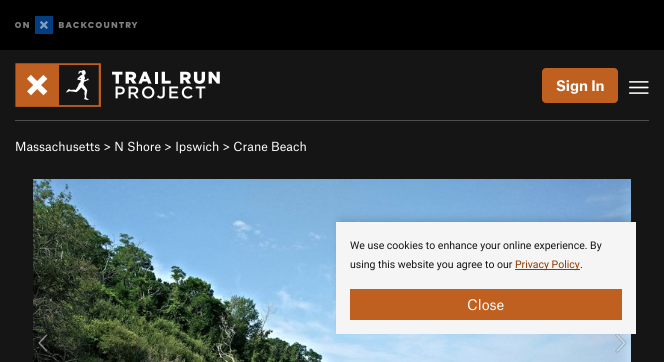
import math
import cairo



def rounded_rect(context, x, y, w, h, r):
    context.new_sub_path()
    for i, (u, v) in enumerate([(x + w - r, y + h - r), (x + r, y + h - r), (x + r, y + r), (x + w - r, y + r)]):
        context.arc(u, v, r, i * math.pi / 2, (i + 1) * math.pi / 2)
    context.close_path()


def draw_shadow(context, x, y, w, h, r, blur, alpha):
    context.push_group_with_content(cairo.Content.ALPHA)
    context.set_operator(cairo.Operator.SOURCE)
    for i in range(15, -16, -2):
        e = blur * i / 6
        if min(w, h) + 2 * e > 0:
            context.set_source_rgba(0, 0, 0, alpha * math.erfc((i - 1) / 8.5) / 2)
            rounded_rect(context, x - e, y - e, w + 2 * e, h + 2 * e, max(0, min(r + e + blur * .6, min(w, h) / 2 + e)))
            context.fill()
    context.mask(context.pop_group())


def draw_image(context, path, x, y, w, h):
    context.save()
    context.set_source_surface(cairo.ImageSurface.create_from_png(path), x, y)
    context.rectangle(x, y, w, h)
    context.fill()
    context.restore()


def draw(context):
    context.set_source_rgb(21 / 255, 21 / 255, 21 / 255)
    context.paint()
    context.set_source_rgb(0, 0, 0)
    context.rectangle(0, 0, 664, 50)
    context.fill()
    draw_image(context, "images/1.png", 15, 16, 123, 18)
    draw_image(context, "images/2.png", 15, 63, 205, 44)
    context.set_source_rgb(192 / 255, 96 / 255, 32 / 255)
    rounded_rect(context, 542, 68, 76, 35, 4)
    context.fill()
    draw_image(context, "images/3.png", 629, 81, 20, 13)
    context.set_source_rgb(78 / 255, 77 / 255, 73 / 255)
    context.rectangle(15, 120, 634, 1)
    context.fill()
    draw_image(context, "images/4.png", 33, 179, 598, 183)
    draw_image(context, "images/5.png", 38, 334, 10, 18)
    draw_image(context, "images/6.png", 615, 334, 12, 19)
    context.set_source_rgb(0, 0, 0)
    draw_shadow(context, 341, 222, 290, 102, 0, 5, 0.25)
    context.set_source_rgb(245 / 255, 245 / 255, 245 / 255)
    context.rectangle(336, 222, 300, 112)
    context.fill()
    context.set_source_rgb(143 / 255, 57 / 255, 0)
    context.rectangle(515, 269, 65, 1)
    context.fill()
    context.set_source_rgb(192 / 255, 96 / 255, 32 / 255)
    context.rectangle(350, 289, 272, 31)
    context.fill()
    context.select_font_face("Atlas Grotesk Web", cairo.FontSlant.NORMAL, cairo.FontWeight.BOLD)
    context.set_font_size(14)
    context.set_source_rgb(1, 1, 1)
    context.move_to(556, 91)
    context.show_text("Sign In")
    context.select_font_face("Atlas Grotesk Web")
    context.set_font_size(12)
    context.move_to(15, 151)
    context.show_text("Massachusetts > N Shore > Ipswich > Crane Beach")
    context.select_font_face("Roboto")
    context.set_font_size(10.5)
    context.set_source_rgb(21 / 255, 21 / 255, 21 / 255)
    context.move_to(350, 249)
    context.show_text("We use cookies to enhance your online experience. By")
    context.move_to(350, 268)
    context.show_text("using this website you agree to our")
    context.set_source_rgb(143 / 255, 57 / 255, 0)
    context.move_to(515, 268)
    context.show_text("Privacy Policy")
    context.set_source_rgb(21 / 255, 21 / 255, 21 / 255)
    context.move_to(580, 268)
    context.show_text(".")
    context.select_font_face("Atlas Grotesk Web")
    context.set_font_size(14)
    context.set_source_rgb(1, 1, 1)
    context.move_to(467, 310)
    context.show_text("Close")


surface = cairo.ImageSurface(cairo.Format.RGB24, 664, 362)
context = cairo.Context(surface)
options = cairo.FontOptions()
options.set_hint_metrics(cairo.HintMetrics.OFF)
options.set_hint_style(cairo.HintStyle.NONE)
context.set_font_options(options)
context.set_miter_limit(4)
draw(context)
surface.write_to_png("out.png")
